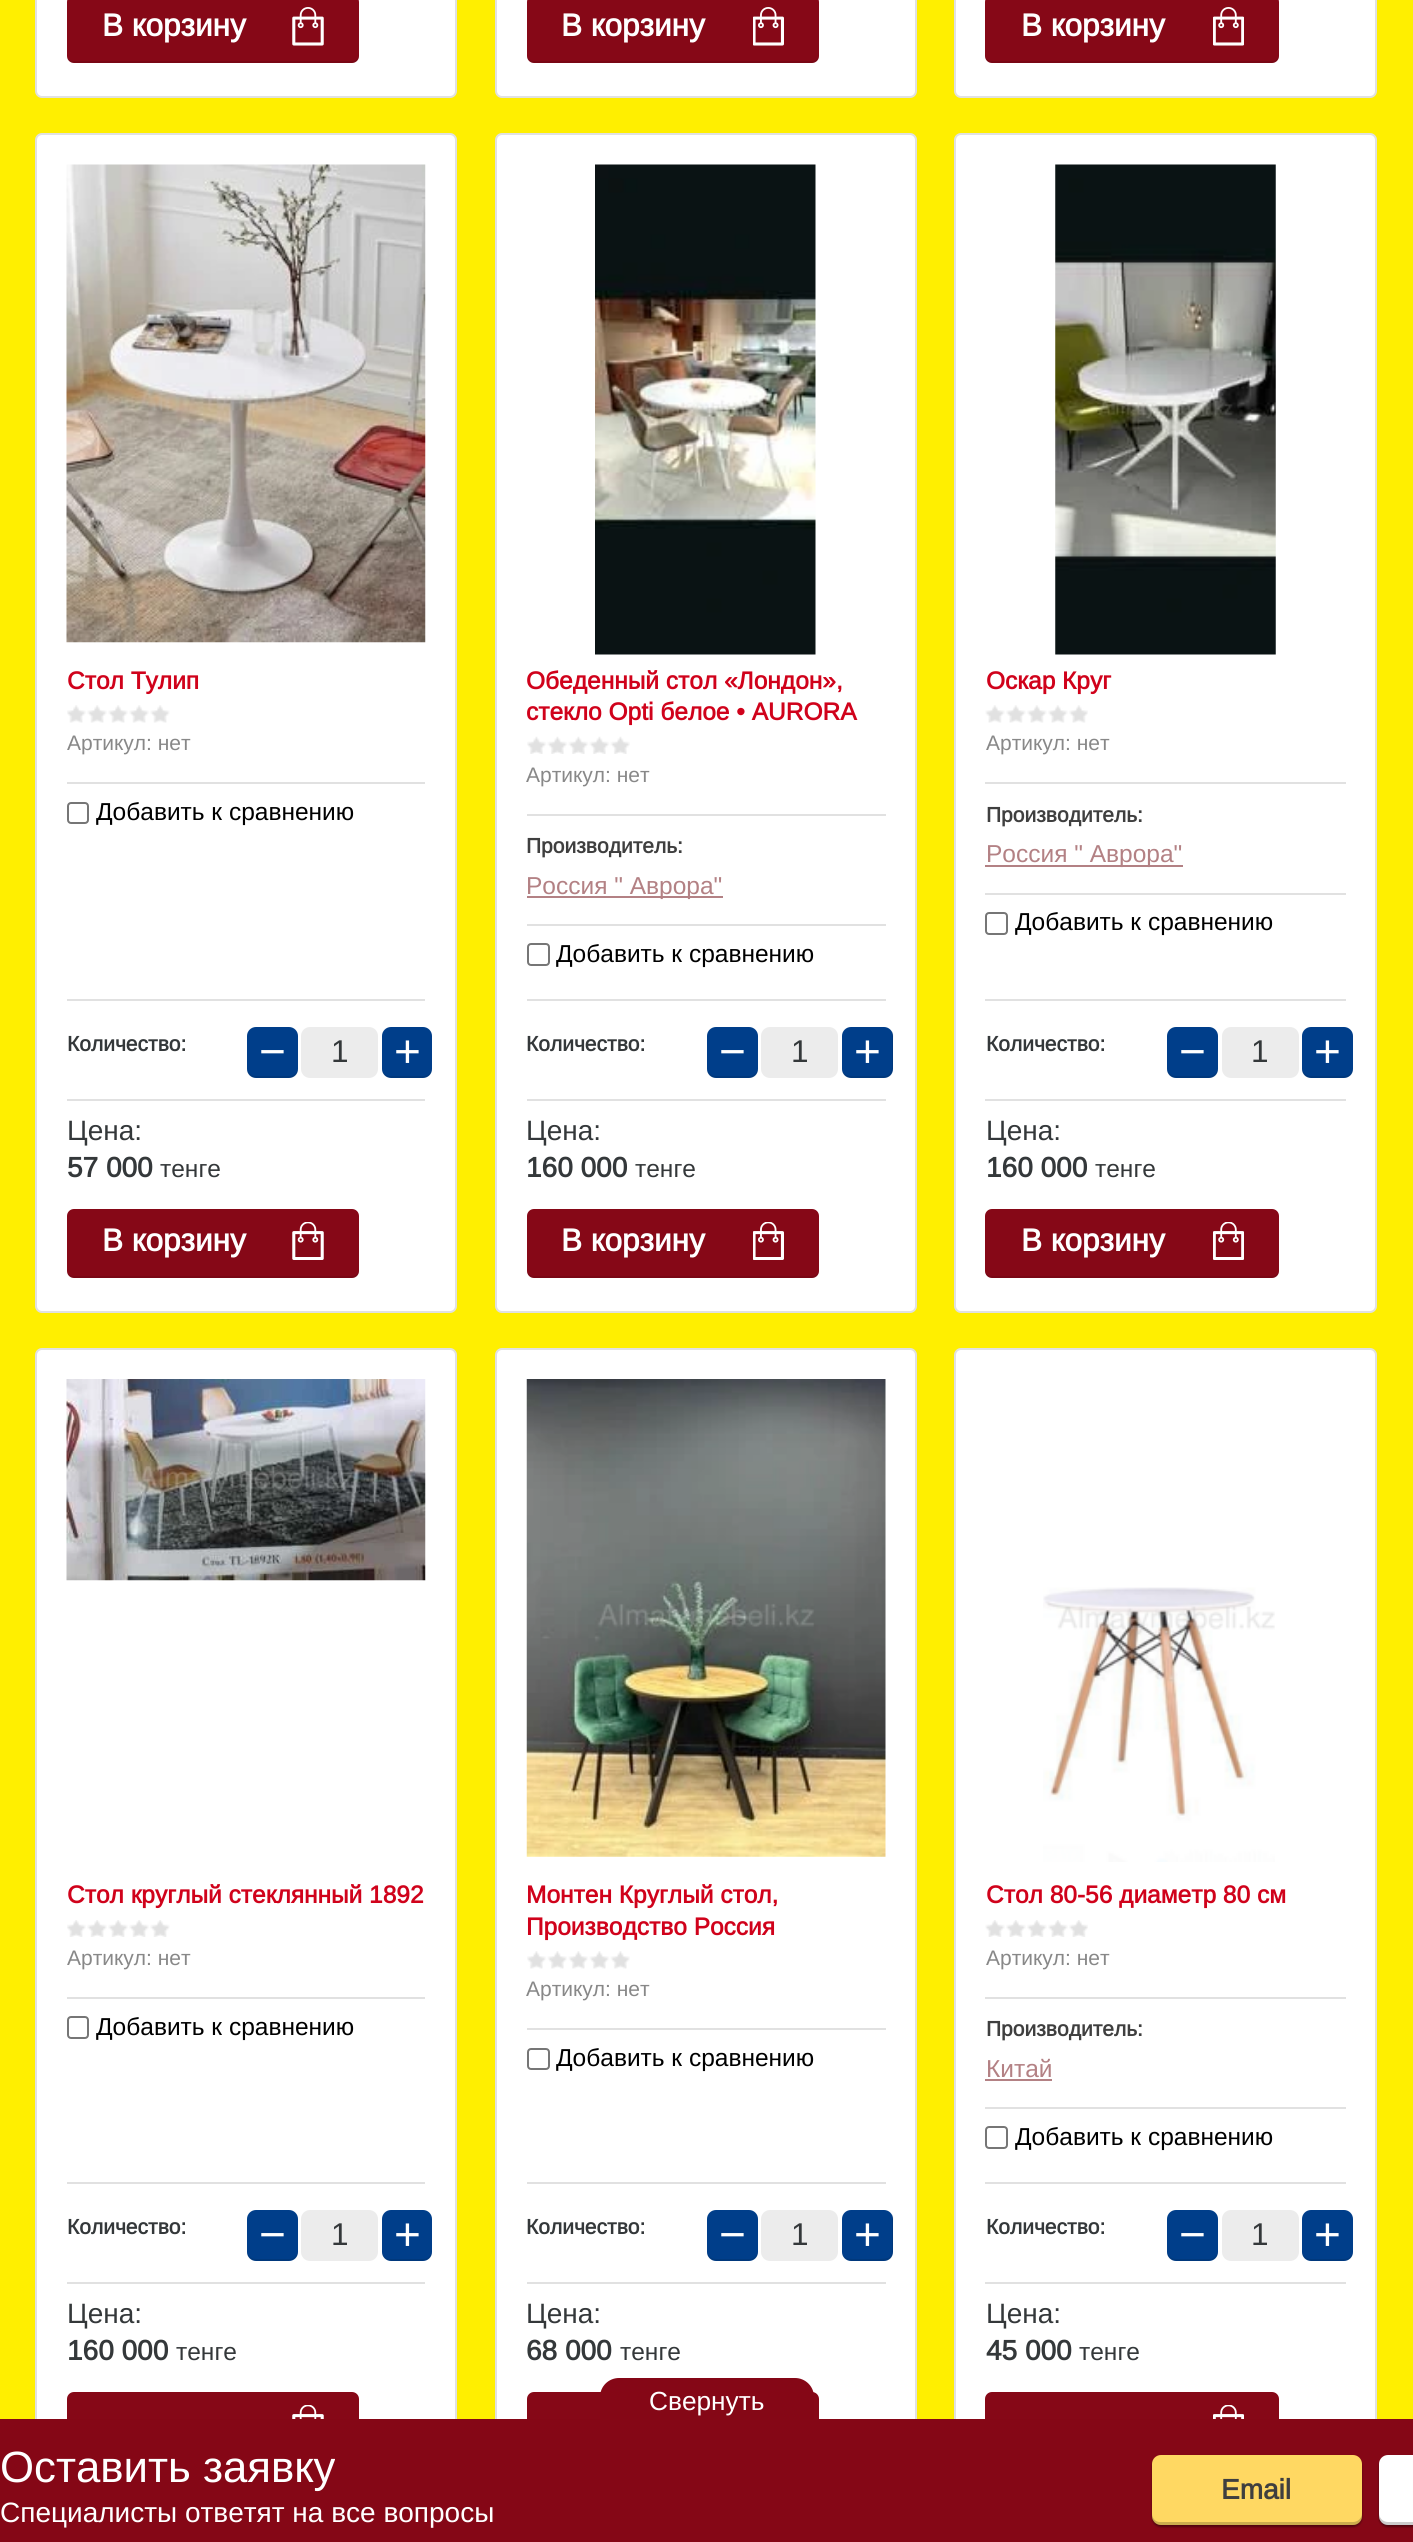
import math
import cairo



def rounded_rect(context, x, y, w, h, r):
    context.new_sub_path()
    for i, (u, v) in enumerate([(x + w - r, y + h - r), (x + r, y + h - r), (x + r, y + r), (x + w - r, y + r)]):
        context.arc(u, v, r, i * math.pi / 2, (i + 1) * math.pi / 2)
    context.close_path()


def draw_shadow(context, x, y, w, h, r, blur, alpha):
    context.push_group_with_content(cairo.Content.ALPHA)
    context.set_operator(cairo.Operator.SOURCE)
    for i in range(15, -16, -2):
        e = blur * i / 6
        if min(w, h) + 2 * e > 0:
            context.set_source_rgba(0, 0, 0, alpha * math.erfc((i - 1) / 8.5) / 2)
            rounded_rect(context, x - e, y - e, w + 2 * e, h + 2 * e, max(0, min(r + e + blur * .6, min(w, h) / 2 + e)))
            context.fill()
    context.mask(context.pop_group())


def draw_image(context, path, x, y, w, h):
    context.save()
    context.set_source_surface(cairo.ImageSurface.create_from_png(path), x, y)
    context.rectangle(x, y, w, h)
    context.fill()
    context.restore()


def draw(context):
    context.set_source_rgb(1, 239 / 255, 0)
    context.paint()
    context.set_source_rgb(1, 1, 1)
    rounded_rect(context, 36, -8, 420, 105, 6)
    context.fill_preserve()
    context.set_source_rgb(225 / 255, 225 / 255, 225 / 255)
    context.stroke()
    context.set_source_rgb(134 / 255, 8 / 255, 23 / 255)
    rounded_rect(context, 67, -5, 292, 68, 7)
    context.fill()
    context.set_source_rgba(0, 0, 0, 0.1)
    context.new_path()
    context.move_to(67, 58)
    context.curve_to(68, 61, 71, 63, 74, 63)
    context.line_to(352, 63)
    context.curve_to(356, 63, 359, 60, 359, 56)
    context.line_to(359, 54)
    context.curve_to(359, 58, 356, 61, 352, 61)
    context.line_to(74, 61)
    context.curve_to(71, 61, 69, 60, 67, 58)
    context.close_path()
    context.fill()
    draw_image(context, "images/1.png", 292, 7, 32, 39)
    context.set_source_rgb(1, 1, 1)
    rounded_rect(context, 496, -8, 420, 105, 6)
    context.fill_preserve()
    context.set_source_rgb(225 / 255, 225 / 255, 225 / 255)
    context.stroke()
    context.set_source_rgb(134 / 255, 8 / 255, 23 / 255)
    rounded_rect(context, 527, -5, 292, 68, 7)
    context.fill()
    context.set_source_rgba(0, 0, 0, 0.1)
    context.new_path()
    context.move_to(527, 54)
    context.curve_to(527, 58, 528, 62, 533, 63)
    context.line_to(813, 63)
    context.curve_to(818, 62, 819, 58, 819, 54)
    context.curve_to(819, 58, 816, 61, 812, 61)
    context.line_to(534, 61)
    context.curve_to(530, 61, 527, 58, 527, 54)
    context.close_path()
    context.fill()
    draw_image(context, "images/2.png", 753, 7, 31, 39)
    context.set_source_rgb(1, 1, 1)
    rounded_rect(context, 955, -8, 421, 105, 6)
    context.fill_preserve()
    context.set_source_rgb(225 / 255, 225 / 255, 225 / 255)
    context.stroke()
    context.set_source_rgb(134 / 255, 8 / 255, 23 / 255)
    rounded_rect(context, 985, -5, 294, 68, 7)
    context.fill()
    context.set_source_rgba(0, 0, 0, 0.1)
    context.new_path()
    context.move_to(985, 54)
    context.curve_to(985, 58, 986, 62, 991, 63)
    context.line_to(1273, 63)
    context.curve_to(1278, 62, 1279, 58, 1279, 54)
    context.curve_to(1279, 58, 1276, 61, 1272, 61)
    context.line_to(992, 61)
    context.curve_to(988, 61, 985, 58, 985, 54)
    context.close_path()
    context.fill()
    draw_image(context, "images/3.png", 1213, 7, 31, 39)
    context.set_source_rgb(1, 1, 1)
    rounded_rect(context, 36, 134, 420, 1178, 6)
    context.fill_preserve()
    context.set_source_rgb(225 / 255, 225 / 255, 225 / 255)
    context.stroke()
    draw_image(context, "images/4.png", 66, 164, 360, 479)
    draw_image(context, "images/5.png", 67, 705, 103, 18)
    context.rectangle(67, 782, 358, 2)
    context.fill()
    rounded_rect(context, 68, 803, 20, 20, 3)
    context.set_source_rgb(118 / 255, 118 / 255, 118 / 255)
    context.stroke()
    context.set_source_rgb(225 / 255, 225 / 255, 225 / 255)
    context.rectangle(67, 999, 358, 2)
    context.fill()
    context.rectangle(67, 1099, 358, 2)
    context.fill()
    context.set_source_rgb(0, 62 / 255, 138 / 255)
    rounded_rect(context, 247, 1027, 51, 51, 9)
    context.fill()
    context.set_source_rgba(0, 0, 0, 0.1)
    context.new_path()
    context.move_to(247, 1068)
    context.curve_to(247, 1078, 254, 1078, 262, 1078)
    context.line_to(284, 1078)
    context.curve_to(291, 1078, 298, 1078, 298, 1068)
    context.curve_to(298, 1072, 294, 1076, 289, 1076)
    context.line_to(256, 1076)
    context.curve_to(251, 1076, 247, 1072, 247, 1068)
    context.close_path()
    context.fill()
    context.set_source_rgb(236 / 255, 236 / 255, 236 / 255)
    rounded_rect(context, 301, 1027, 77, 51, 9)
    context.fill()
    context.set_source_rgb(0, 62 / 255, 138 / 255)
    rounded_rect(context, 382, 1027, 50, 51, 9)
    context.fill()
    context.set_source_rgba(0, 0, 0, 0.1)
    context.new_path()
    context.move_to(382, 1068)
    context.curve_to(382, 1077, 389, 1078, 396, 1078)
    context.line_to(418, 1078)
    context.curve_to(425, 1078, 432, 1077, 432, 1068)
    context.curve_to(432, 1072, 428, 1076, 424, 1076)
    context.line_to(390, 1076)
    context.curve_to(385, 1076, 382, 1072, 382, 1068)
    context.close_path()
    context.fill()
    context.set_source_rgb(134 / 255, 8 / 255, 23 / 255)
    rounded_rect(context, 67, 1209, 292, 69, 7)
    context.fill()
    context.set_source_rgba(0, 0, 0, 0.1)
    context.new_path()
    context.move_to(67, 1273)
    context.curve_to(68, 1276, 71, 1278, 74, 1278)
    context.line_to(352, 1278)
    context.curve_to(356, 1278, 359, 1275, 359, 1271)
    context.line_to(359, 1269)
    context.curve_to(359, 1273, 356, 1276, 352, 1276)
    context.line_to(74, 1276)
    context.curve_to(71, 1276, 69, 1275, 67, 1273)
    context.close_path()
    context.fill()
    draw_image(context, "images/6.png", 292, 1222, 32, 38)
    context.set_source_rgb(1, 1, 1)
    rounded_rect(context, 496, 134, 420, 1178, 6)
    context.fill_preserve()
    context.set_source_rgb(225 / 255, 225 / 255, 225 / 255)
    context.stroke()
    draw_image(context, "images/7.png", 595, 164, 221, 491)
    draw_image(context, "images/8.png", 527, 736, 103, 18)
    context.rectangle(527, 814, 359, 2)
    context.fill()
    context.set_source_rgb(179 / 255, 129 / 255, 132 / 255)
    context.rectangle(527, 896, 196, 2)
    context.fill()
    context.set_source_rgb(225 / 255, 225 / 255, 225 / 255)
    context.rectangle(527, 924, 359, 2)
    context.fill()
    rounded_rect(context, 528, 944, 21, 21, 3)
    context.set_source_rgb(118 / 255, 118 / 255, 118 / 255)
    context.stroke()
    context.set_source_rgb(225 / 255, 225 / 255, 225 / 255)
    context.rectangle(527, 999, 359, 2)
    context.fill()
    context.rectangle(527, 1099, 359, 2)
    context.fill()
    context.set_source_rgb(0, 62 / 255, 138 / 255)
    rounded_rect(context, 707, 1027, 51, 51, 9)
    context.fill()
    context.set_source_rgba(0, 0, 0, 0.1)
    context.new_path()
    context.move_to(707, 1068)
    context.curve_to(707, 1078, 714, 1078, 722, 1078)
    context.line_to(744, 1078)
    context.curve_to(751, 1078, 758, 1078, 758, 1068)
    context.curve_to(758, 1072, 754, 1076, 749, 1076)
    context.line_to(716, 1076)
    context.curve_to(711, 1076, 707, 1072, 707, 1068)
    context.close_path()
    context.fill()
    context.set_source_rgb(236 / 255, 236 / 255, 236 / 255)
    rounded_rect(context, 761, 1027, 77, 51, 9)
    context.fill()
    context.set_source_rgb(0, 62 / 255, 138 / 255)
    rounded_rect(context, 842, 1027, 51, 51, 9)
    context.fill()
    context.set_source_rgba(0, 0, 0, 0.1)
    context.new_path()
    context.move_to(842, 1068)
    context.curve_to(842, 1078, 849, 1078, 856, 1078)
    context.line_to(868, 1078)
    context.curve_to(895, 1078, 893, 1080, 893, 1052)
    context.line_to(893, 1042)
    context.curve_to(893, 1038, 894, 1034, 892, 1031)
    context.line_to(892, 1062)
    context.curve_to(892, 1068, 892, 1074, 886, 1076)
    context.line_to(861, 1076)
    context.curve_to(855, 1076, 842, 1078, 842, 1068)
    context.close_path()
    context.fill()
    context.set_source_rgb(134 / 255, 8 / 255, 23 / 255)
    rounded_rect(context, 527, 1209, 292, 69, 7)
    context.fill()
    context.set_source_rgba(0, 0, 0, 0.1)
    context.new_path()
    context.move_to(527, 1269)
    context.curve_to(527, 1273, 528, 1277, 533, 1278)
    context.line_to(813, 1278)
    context.curve_to(818, 1277, 819, 1273, 819, 1269)
    context.curve_to(819, 1273, 816, 1276, 812, 1276)
    context.line_to(534, 1276)
    context.curve_to(530, 1276, 527, 1273, 527, 1269)
    context.close_path()
    context.fill()
    draw_image(context, "images/9.png", 753, 1222, 31, 38)
    context.set_source_rgb(1, 1, 1)
    rounded_rect(context, 955, 134, 421, 1178, 6)
    context.fill_preserve()
    context.set_source_rgb(225 / 255, 225 / 255, 225 / 255)
    context.stroke()
    draw_image(context, "images/10.png", 1055, 164, 221, 491)
    draw_image(context, "images/11.png", 985, 705, 103, 18)
    context.rectangle(985, 782, 361, 2)
    context.fill()
    context.set_source_rgb(179 / 255, 129 / 255, 132 / 255)
    context.rectangle(985, 865, 198, 2)
    context.fill()
    context.set_source_rgb(225 / 255, 225 / 255, 225 / 255)
    context.rectangle(985, 893, 361, 2)
    context.fill()
    rounded_rect(context, 986, 913, 21, 21, 3)
    context.set_source_rgb(118 / 255, 118 / 255, 118 / 255)
    context.stroke()
    context.set_source_rgb(225 / 255, 225 / 255, 225 / 255)
    context.rectangle(985, 999, 361, 2)
    context.fill()
    context.rectangle(985, 1099, 361, 2)
    context.fill()
    context.set_source_rgb(0, 62 / 255, 138 / 255)
    rounded_rect(context, 1167, 1027, 51, 51, 9)
    context.fill()
    context.set_source_rgba(0, 0, 0, 0.1)
    context.new_path()
    context.move_to(1167, 1068)
    context.curve_to(1167, 1078, 1174, 1078, 1182, 1078)
    context.line_to(1204, 1078)
    context.curve_to(1211, 1078, 1218, 1078, 1218, 1068)
    context.curve_to(1218, 1072, 1214, 1076, 1209, 1076)
    context.line_to(1176, 1076)
    context.curve_to(1171, 1076, 1167, 1072, 1167, 1068)
    context.close_path()
    context.fill()
    context.set_source_rgb(236 / 255, 236 / 255, 236 / 255)
    rounded_rect(context, 1222, 1027, 77, 51, 9)
    context.fill()
    context.set_source_rgb(0, 62 / 255, 138 / 255)
    rounded_rect(context, 1302, 1027, 51, 51, 9)
    context.fill()
    context.set_source_rgba(0, 0, 0, 0.1)
    context.new_path()
    context.move_to(1302, 1068)
    context.curve_to(1302, 1078, 1309, 1078, 1316, 1078)
    context.line_to(1338, 1078)
    context.curve_to(1346, 1078, 1353, 1078, 1353, 1068)
    context.curve_to(1353, 1072, 1349, 1076, 1344, 1076)
    context.line_to(1311, 1076)
    context.curve_to(1306, 1076, 1302, 1072, 1302, 1068)
    context.close_path()
    context.fill()
    context.set_source_rgb(134 / 255, 8 / 255, 23 / 255)
    rounded_rect(context, 985, 1209, 294, 69, 7)
    context.fill()
    context.set_source_rgba(0, 0, 0, 0.1)
    context.new_path()
    context.move_to(985, 1269)
    context.curve_to(985, 1273, 986, 1277, 991, 1278)
    context.line_to(1273, 1278)
    context.curve_to(1278, 1277, 1279, 1273, 1279, 1269)
    context.curve_to(1279, 1273, 1276, 1276, 1272, 1276)
    context.line_to(992, 1276)
    context.curve_to(988, 1276, 985, 1273, 985, 1269)
    context.close_path()
    context.fill()
    draw_image(context, "images/12.png", 1213, 1222, 31, 38)
    context.set_source_rgb(1, 1, 1)
    rounded_rect(context, 36, 1349, 420, 1146, 6)
    context.fill_preserve()
    context.set_source_rgb(225 / 255, 225 / 255, 225 / 255)
    context.stroke()
    draw_image(context, "images/13.png", 66, 1379, 360, 202)
    draw_image(context, "images/14.png", 67, 1920, 103, 17)
    context.rectangle(67, 1997, 358, 2)
    context.fill()
    rounded_rect(context, 68, 2017, 20, 21, 3)
    context.set_source_rgb(118 / 255, 118 / 255, 118 / 255)
    context.stroke()
    context.set_source_rgb(225 / 255, 225 / 255, 225 / 255)
    context.rectangle(67, 2182, 358, 2)
    context.fill()
    context.rectangle(67, 2282, 358, 2)
    context.fill()
    context.set_source_rgb(0, 62 / 255, 138 / 255)
    rounded_rect(context, 247, 2210, 51, 51, 9)
    context.fill()
    context.set_source_rgba(0, 0, 0, 0.1)
    context.new_path()
    context.move_to(247, 2250)
    context.curve_to(247, 2260, 253, 2261, 262, 2261)
    context.line_to(284, 2261)
    context.curve_to(292, 2261, 298, 2260, 298, 2250)
    context.curve_to(298, 2255, 294, 2259, 289, 2259)
    context.line_to(256, 2259)
    context.curve_to(251, 2259, 247, 2255, 247, 2250)
    context.close_path()
    context.fill()
    context.set_source_rgb(236 / 255, 236 / 255, 236 / 255)
    rounded_rect(context, 301, 2210, 77, 51, 9)
    context.fill()
    context.set_source_rgb(0, 62 / 255, 138 / 255)
    rounded_rect(context, 382, 2210, 50, 51, 9)
    context.fill()
    context.set_source_rgba(0, 0, 0, 0.1)
    context.new_path()
    context.move_to(382, 2250)
    context.curve_to(382, 2260, 388, 2261, 396, 2261)
    context.line_to(418, 2261)
    context.curve_to(426, 2261, 432, 2260, 432, 2250)
    context.curve_to(432, 2255, 428, 2259, 424, 2259)
    context.line_to(390, 2259)
    context.curve_to(385, 2259, 382, 2255, 382, 2250)
    context.close_path()
    context.fill()
    context.set_source_rgb(134 / 255, 8 / 255, 23 / 255)
    rounded_rect(context, 67, 2392, 292, 69, 7)
    context.fill()
    draw_image(context, "images/15.png", 292, 2405, 32, 14)
    context.set_source_rgb(1, 1, 1)
    rounded_rect(context, 496, 1349, 420, 1146, 6)
    context.fill_preserve()
    context.set_source_rgb(225 / 255, 225 / 255, 225 / 255)
    context.stroke()
    draw_image(context, "images/16.png", 526, 1379, 360, 478)
    draw_image(context, "images/17.png", 527, 1951, 103, 18)
    context.rectangle(527, 2028, 359, 2)
    context.fill()
    rounded_rect(context, 528, 2049, 21, 20, 3)
    context.set_source_rgb(118 / 255, 118 / 255, 118 / 255)
    context.stroke()
    context.set_source_rgb(225 / 255, 225 / 255, 225 / 255)
    context.rectangle(527, 2182, 359, 2)
    context.fill()
    context.rectangle(527, 2282, 359, 2)
    context.fill()
    context.set_source_rgb(0, 62 / 255, 138 / 255)
    rounded_rect(context, 707, 2210, 51, 51, 9)
    context.fill()
    context.set_source_rgba(0, 0, 0, 0.1)
    context.new_path()
    context.move_to(707, 2250)
    context.curve_to(707, 2260, 713, 2261, 722, 2261)
    context.line_to(744, 2261)
    context.curve_to(752, 2261, 758, 2260, 758, 2250)
    context.curve_to(758, 2255, 754, 2259, 749, 2259)
    context.line_to(716, 2259)
    context.curve_to(711, 2259, 707, 2255, 707, 2250)
    context.close_path()
    context.fill()
    context.set_source_rgb(236 / 255, 236 / 255, 236 / 255)
    rounded_rect(context, 761, 2210, 77, 51, 9)
    context.fill()
    context.set_source_rgb(0, 62 / 255, 138 / 255)
    rounded_rect(context, 842, 2210, 51, 51, 9)
    context.fill()
    context.set_source_rgba(0, 0, 0, 0.1)
    context.new_path()
    context.move_to(842, 2250)
    context.curve_to(842, 2260, 848, 2261, 856, 2261)
    context.line_to(868, 2261)
    context.curve_to(895, 2261, 893, 2263, 893, 2236)
    context.line_to(893, 2224)
    context.curve_to(893, 2221, 894, 2217, 892, 2214)
    context.line_to(892, 2239)
    context.curve_to(892, 2259, 893, 2259, 873, 2259)
    context.line_to(856, 2259)
    context.curve_to(849, 2259, 842, 2259, 842, 2250)
    context.close_path()
    context.fill()
    context.set_source_rgb(134 / 255, 8 / 255, 23 / 255)
    rounded_rect(context, 527, 2392, 292, 69, 7)
    context.fill()
    context.set_source_rgb(1, 1, 1)
    rounded_rect(context, 955, 1349, 421, 1146, 6)
    context.fill_preserve()
    context.set_source_rgb(225 / 255, 225 / 255, 225 / 255)
    context.stroke()
    draw_image(context, "images/18.png", 1043, 1587, 232, 275)
    draw_image(context, "images/19.png", 985, 1920, 103, 17)
    context.rectangle(985, 1997, 361, 2)
    context.fill()
    context.set_source_rgb(179 / 255, 129 / 255, 132 / 255)
    context.rectangle(985, 2079, 67, 2)
    context.fill()
    context.set_source_rgb(225 / 255, 225 / 255, 225 / 255)
    context.rectangle(985, 2107, 361, 2)
    context.fill()
    rounded_rect(context, 986, 2127, 21, 21, 3)
    context.set_source_rgb(118 / 255, 118 / 255, 118 / 255)
    context.stroke()
    context.set_source_rgb(225 / 255, 225 / 255, 225 / 255)
    context.rectangle(985, 2182, 361, 2)
    context.fill()
    context.rectangle(985, 2282, 361, 2)
    context.fill()
    context.set_source_rgb(0, 62 / 255, 138 / 255)
    rounded_rect(context, 1167, 2210, 51, 51, 9)
    context.fill()
    context.set_source_rgba(0, 0, 0, 0.1)
    context.new_path()
    context.move_to(1167, 2250)
    context.curve_to(1167, 2260, 1173, 2261, 1182, 2261)
    context.line_to(1204, 2261)
    context.curve_to(1212, 2261, 1218, 2260, 1218, 2250)
    context.curve_to(1218, 2255, 1214, 2259, 1209, 2259)
    context.line_to(1176, 2259)
    context.curve_to(1171, 2259, 1167, 2255, 1167, 2250)
    context.close_path()
    context.fill()
    context.set_source_rgb(236 / 255, 236 / 255, 236 / 255)
    rounded_rect(context, 1222, 2210, 77, 51, 9)
    context.fill()
    context.set_source_rgb(0, 62 / 255, 138 / 255)
    rounded_rect(context, 1302, 2210, 51, 51, 9)
    context.fill()
    context.set_source_rgba(0, 0, 0, 0.1)
    context.new_path()
    context.move_to(1302, 2250)
    context.curve_to(1302, 2260, 1308, 2261, 1316, 2261)
    context.line_to(1338, 2261)
    context.curve_to(1347, 2261, 1353, 2260, 1353, 2250)
    context.curve_to(1353, 2255, 1349, 2259, 1344, 2259)
    context.line_to(1311, 2259)
    context.curve_to(1306, 2259, 1302, 2255, 1302, 2250)
    context.close_path()
    context.fill()
    context.set_source_rgb(134 / 255, 8 / 255, 23 / 255)
    rounded_rect(context, 985, 2392, 294, 69, 7)
    context.fill()
    draw_image(context, "images/20.png", 1213, 2405, 31, 14)
    context.set_source_rgb(133 / 255, 7 / 255, 22 / 255)
    context.rectangle(0, 2419, 1413, 123)
    context.fill()
    rounded_rect(context, 600, 2378, 214, 63, 19)
    context.fill()
    context.set_source_rgb(0, 0, 0)
    draw_shadow(context, 1152, 2457, 210, 70, 9, 1, 0.4)
    context.set_source_rgb(1, 216 / 255, 98 / 255)
    rounded_rect(context, 1152, 2455, 210, 70, 9)
    context.fill()
    context.set_source_rgba(0, 0, 0, 0.2)
    context.new_path()
    context.move_to(1152, 2513)
    context.line_to(1152, 2516)
    context.curve_to(1152, 2521, 1156, 2525, 1161, 2525)
    context.line_to(1353, 2525)
    context.curve_to(1358, 2525, 1362, 2521, 1362, 2516)
    context.line_to(1362, 2513)
    context.curve_to(1362, 2518, 1358, 2522, 1353, 2522)
    context.line_to(1160, 2522)
    context.curve_to(1155, 2522, 1152, 2518, 1152, 2513)
    context.close_path()
    context.fill()
    context.set_source_rgb(0, 0, 0)
    draw_shadow(context, 1379, 2457, 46, 70, 9, 1, 0.4)
    context.set_source_rgb(1, 1, 1)
    rounded_rect(context, 1379, 2455, 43, 70, 9)
    context.fill()
    context.set_source_rgba(0, 0, 0, 0.2)
    context.new_path()
    context.move_to(1379, 2513)
    context.line_to(1379, 2516)
    context.curve_to(1379, 2521, 1383, 2525, 1388, 2525)
    context.line_to(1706, 2525)
    context.curve_to(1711, 2525, 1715, 2521, 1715, 2516)
    context.line_to(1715, 2513)
    context.curve_to(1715, 2518, 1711, 2522, 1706, 2522)
    context.line_to(1388, 2522)
    context.curve_to(1383, 2522, 1379, 2518, 1379, 2513)
    context.close_path()
    context.fill()
    context.select_font_face("Arimo", cairo.FontSlant.NORMAL, cairo.FontWeight.BOLD)
    context.set_font_size(31.5)
    context.set_source_rgb(1, 1, 1)
    context.move_to(102, 36)
    context.show_text("В корзину")
    context.move_to(561, 36)
    context.show_text("В корзину")
    context.move_to(1021, 36)
    context.show_text("В корзину")
    context.set_font_size(24.5)
    context.set_source_rgb(208 / 255, 2 / 255, 27 / 255)
    context.move_to(67, 689)
    context.show_text("Стол Тулип")
    context.select_font_face("Arimo")
    context.set_font_size(21)
    context.set_source_rgb(136 / 255, 136 / 255, 136 / 255)
    context.move_to(67, 750)
    context.show_text("Артикул: нет")
    context.set_font_size(24.5)
    context.set_source_rgb(0, 0, 0)
    context.move_to(96, 820)
    context.show_text("Добавить к сравнению")
    context.select_font_face("Arimo", cairo.FontSlant.NORMAL, cairo.FontWeight.BOLD)
    context.set_font_size(21)
    context.set_source_rgb(52 / 255, 56 / 255, 58 / 255)
    context.move_to(67, 1051)
    context.show_text("Количество:")
    context.select_font_face("Arimo")
    context.set_font_size(46)
    context.set_source_rgb(1, 1, 1)
    context.move_to(259, 1067)
    context.show_text("−")
    context.set_font_size(31.5)
    context.set_source_rgb(52 / 255, 56 / 255, 58 / 255)
    context.move_to(331, 1062)
    context.show_text("1")
    context.set_font_size(46)
    context.set_source_rgb(1, 1, 1)
    context.move_to(394, 1067)
    context.show_text("+")
    context.set_font_size(28)
    context.set_source_rgb(52 / 255, 56 / 255, 58 / 255)
    context.move_to(67, 1140)
    context.show_text("Цена:")
    context.select_font_face("Arimo", cairo.FontSlant.NORMAL, cairo.FontWeight.BOLD)
    context.move_to(67, 1177)
    context.show_text("57 000")
    context.select_font_face("Arimo")
    context.set_font_size(24.5)
    context.move_to(160, 1177)
    context.show_text("тенге")
    context.select_font_face("Arimo", cairo.FontSlant.NORMAL, cairo.FontWeight.BOLD)
    context.set_font_size(31.5)
    context.set_source_rgb(1, 1, 1)
    context.move_to(102, 1251)
    context.show_text("В корзину")
    context.set_font_size(24.5)
    context.set_source_rgb(208 / 255, 2 / 255, 27 / 255)
    context.move_to(526, 689)
    context.show_text("Обеденный стол «Лондон»,")
    context.move_to(526, 720)
    context.show_text("стекло Opti белое • AURORA")
    context.select_font_face("Arimo")
    context.set_font_size(21)
    context.set_source_rgb(136 / 255, 136 / 255, 136 / 255)
    context.move_to(526, 782)
    context.show_text("Артикул: нет")
    context.select_font_face("Arimo", cairo.FontSlant.NORMAL, cairo.FontWeight.BOLD)
    context.set_source_rgb(63 / 255, 63 / 255, 63 / 255)
    context.move_to(526, 853)
    context.show_text("Производитель:")
    context.select_font_face("Arimo")
    context.set_font_size(24.5)
    context.set_source_rgb(179 / 255, 129 / 255, 132 / 255)
    context.move_to(526, 894)
    context.show_text("Россия \" Аврора\"")
    context.set_source_rgb(0, 0, 0)
    context.move_to(556, 962)
    context.show_text("Добавить к сравнению")
    context.select_font_face("Arimo", cairo.FontSlant.NORMAL, cairo.FontWeight.BOLD)
    context.set_font_size(21)
    context.set_source_rgb(52 / 255, 56 / 255, 58 / 255)
    context.move_to(526, 1051)
    context.show_text("Количество:")
    context.select_font_face("Arimo")
    context.set_font_size(46)
    context.set_source_rgb(1, 1, 1)
    context.move_to(719, 1067)
    context.show_text("−")
    context.set_font_size(31.5)
    context.set_source_rgb(52 / 255, 56 / 255, 58 / 255)
    context.move_to(791, 1062)
    context.show_text("1")
    context.set_font_size(46)
    context.set_source_rgb(1, 1, 1)
    context.move_to(854, 1067)
    context.show_text("+")
    context.set_font_size(28)
    context.set_source_rgb(52 / 255, 56 / 255, 58 / 255)
    context.move_to(526, 1140)
    context.show_text("Цена:")
    context.select_font_face("Arimo", cairo.FontSlant.NORMAL, cairo.FontWeight.BOLD)
    context.move_to(526, 1177)
    context.show_text("160 000")
    context.select_font_face("Arimo")
    context.set_font_size(24.5)
    context.move_to(635, 1177)
    context.show_text("тенге")
    context.select_font_face("Arimo", cairo.FontSlant.NORMAL, cairo.FontWeight.BOLD)
    context.set_font_size(31.5)
    context.set_source_rgb(1, 1, 1)
    context.move_to(561, 1251)
    context.show_text("В корзину")
    context.set_font_size(24.5)
    context.set_source_rgb(208 / 255, 2 / 255, 27 / 255)
    context.move_to(986, 689)
    context.show_text("Оскар Круг")
    context.select_font_face("Arimo")
    context.set_font_size(21)
    context.set_source_rgb(136 / 255, 136 / 255, 136 / 255)
    context.move_to(986, 750)
    context.show_text("Артикул: нет")
    context.select_font_face("Arimo", cairo.FontSlant.NORMAL, cairo.FontWeight.BOLD)
    context.set_source_rgb(63 / 255, 63 / 255, 63 / 255)
    context.move_to(986, 822)
    context.show_text("Производитель:")
    context.select_font_face("Arimo")
    context.set_font_size(24.5)
    context.set_source_rgb(179 / 255, 129 / 255, 132 / 255)
    context.move_to(986, 862)
    context.show_text("Россия \" Аврора\"")
    context.set_source_rgb(0, 0, 0)
    context.move_to(1015, 930)
    context.show_text("Добавить к сравнению")
    context.select_font_face("Arimo", cairo.FontSlant.NORMAL, cairo.FontWeight.BOLD)
    context.set_font_size(21)
    context.set_source_rgb(52 / 255, 56 / 255, 58 / 255)
    context.move_to(986, 1051)
    context.show_text("Количество:")
    context.select_font_face("Arimo")
    context.set_font_size(46)
    context.set_source_rgb(1, 1, 1)
    context.move_to(1179, 1067)
    context.show_text("−")
    context.set_font_size(31.5)
    context.set_source_rgb(52 / 255, 56 / 255, 58 / 255)
    context.move_to(1251, 1062)
    context.show_text("1")
    context.set_font_size(46)
    context.set_source_rgb(1, 1, 1)
    context.move_to(1314, 1067)
    context.show_text("+")
    context.set_font_size(28)
    context.set_source_rgb(52 / 255, 56 / 255, 58 / 255)
    context.move_to(986, 1140)
    context.show_text("Цена:")
    context.select_font_face("Arimo", cairo.FontSlant.NORMAL, cairo.FontWeight.BOLD)
    context.move_to(986, 1177)
    context.show_text("160 000")
    context.select_font_face("Arimo")
    context.set_font_size(24.5)
    context.move_to(1095, 1177)
    context.show_text("тенге")
    context.select_font_face("Arimo", cairo.FontSlant.NORMAL, cairo.FontWeight.BOLD)
    context.set_font_size(31.5)
    context.set_source_rgb(1, 1, 1)
    context.move_to(1021, 1251)
    context.show_text("В корзину")
    context.set_font_size(24.5)
    context.set_source_rgb(208 / 255, 2 / 255, 27 / 255)
    context.move_to(67, 1903)
    context.show_text("Стол круглый стеклянный 1892")
    context.select_font_face("Arimo")
    context.set_font_size(21)
    context.set_source_rgb(136 / 255, 136 / 255, 136 / 255)
    context.move_to(67, 1965)
    context.show_text("Артикул: нет")
    context.set_font_size(24.5)
    context.set_source_rgb(0, 0, 0)
    context.move_to(96, 2035)
    context.show_text("Добавить к сравнению")
    context.select_font_face("Arimo", cairo.FontSlant.NORMAL, cairo.FontWeight.BOLD)
    context.set_font_size(21)
    context.set_source_rgb(52 / 255, 56 / 255, 58 / 255)
    context.move_to(67, 2234)
    context.show_text("Количество:")
    context.select_font_face("Arimo")
    context.set_font_size(46)
    context.set_source_rgb(1, 1, 1)
    context.move_to(259, 2250)
    context.show_text("−")
    context.set_font_size(31.5)
    context.set_source_rgb(52 / 255, 56 / 255, 58 / 255)
    context.move_to(331, 2245)
    context.show_text("1")
    context.set_font_size(46)
    context.set_source_rgb(1, 1, 1)
    context.move_to(394, 2250)
    context.show_text("+")
    context.set_font_size(28)
    context.set_source_rgb(52 / 255, 56 / 255, 58 / 255)
    context.move_to(67, 2323)
    context.show_text("Цена:")
    context.select_font_face("Arimo", cairo.FontSlant.NORMAL, cairo.FontWeight.BOLD)
    context.move_to(67, 2360)
    context.show_text("160 000")
    context.select_font_face("Arimo")
    context.set_font_size(24.5)
    context.move_to(176, 2360)
    context.show_text("тенге")
    context.select_font_face("Arimo", cairo.FontSlant.NORMAL, cairo.FontWeight.BOLD)
    context.set_source_rgb(208 / 255, 2 / 255, 27 / 255)
    context.move_to(526, 1903)
    context.show_text("Монтен Круглый стол,")
    context.move_to(526, 1935)
    context.show_text("Производство Россия")
    context.select_font_face("Arimo")
    context.set_font_size(21)
    context.set_source_rgb(136 / 255, 136 / 255, 136 / 255)
    context.move_to(526, 1996)
    context.show_text("Артикул: нет")
    context.set_font_size(24.5)
    context.set_source_rgb(0, 0, 0)
    context.move_to(556, 2066)
    context.show_text("Добавить к сравнению")
    context.select_font_face("Arimo", cairo.FontSlant.NORMAL, cairo.FontWeight.BOLD)
    context.set_font_size(21)
    context.set_source_rgb(52 / 255, 56 / 255, 58 / 255)
    context.move_to(526, 2234)
    context.show_text("Количество:")
    context.select_font_face("Arimo")
    context.set_font_size(46)
    context.set_source_rgb(1, 1, 1)
    context.move_to(719, 2250)
    context.show_text("−")
    context.set_font_size(31.5)
    context.set_source_rgb(52 / 255, 56 / 255, 58 / 255)
    context.move_to(791, 2245)
    context.show_text("1")
    context.set_font_size(46)
    context.set_source_rgb(1, 1, 1)
    context.move_to(854, 2250)
    context.show_text("+")
    context.set_font_size(28)
    context.set_source_rgb(52 / 255, 56 / 255, 58 / 255)
    context.move_to(526, 2323)
    context.show_text("Цена:")
    context.select_font_face("Arimo", cairo.FontSlant.NORMAL, cairo.FontWeight.BOLD)
    context.move_to(526, 2360)
    context.show_text("68 000")
    context.select_font_face("Arimo")
    context.set_font_size(24.5)
    context.move_to(620, 2360)
    context.show_text("тенге")
    context.select_font_face("Arimo", cairo.FontSlant.NORMAL, cairo.FontWeight.BOLD)
    context.set_source_rgb(208 / 255, 2 / 255, 27 / 255)
    context.move_to(986, 1903)
    context.show_text("Стол 80-56 диаметр 80 см")
    context.select_font_face("Arimo")
    context.set_font_size(21)
    context.set_source_rgb(136 / 255, 136 / 255, 136 / 255)
    context.move_to(986, 1965)
    context.show_text("Артикул: нет")
    context.select_font_face("Arimo", cairo.FontSlant.NORMAL, cairo.FontWeight.BOLD)
    context.set_source_rgb(63 / 255, 63 / 255, 63 / 255)
    context.move_to(986, 2036)
    context.show_text("Производитель:")
    context.select_font_face("Arimo")
    context.set_font_size(24.5)
    context.set_source_rgb(179 / 255, 129 / 255, 132 / 255)
    context.move_to(986, 2077)
    context.show_text("Китай")
    context.set_source_rgb(0, 0, 0)
    context.move_to(1015, 2145)
    context.show_text("Добавить к сравнению")
    context.select_font_face("Arimo", cairo.FontSlant.NORMAL, cairo.FontWeight.BOLD)
    context.set_font_size(21)
    context.set_source_rgb(52 / 255, 56 / 255, 58 / 255)
    context.move_to(986, 2234)
    context.show_text("Количество:")
    context.select_font_face("Arimo")
    context.set_font_size(46)
    context.set_source_rgb(1, 1, 1)
    context.move_to(1179, 2250)
    context.show_text("−")
    context.set_font_size(31.5)
    context.set_source_rgb(52 / 255, 56 / 255, 58 / 255)
    context.move_to(1251, 2245)
    context.show_text("1")
    context.set_font_size(46)
    context.set_source_rgb(1, 1, 1)
    context.move_to(1314, 2250)
    context.show_text("+")
    context.set_font_size(28)
    context.set_source_rgb(52 / 255, 56 / 255, 58 / 255)
    context.move_to(986, 2323)
    context.show_text("Цена:")
    context.select_font_face("Arimo", cairo.FontSlant.NORMAL, cairo.FontWeight.BOLD)
    context.move_to(986, 2360)
    context.show_text("45 000")
    context.select_font_face("Arimo")
    context.set_font_size(24.5)
    context.move_to(1079, 2360)
    context.show_text("тенге")
    context.set_font_size(26.25)
    context.set_source_rgb(1, 1, 1)
    context.move_to(649, 2410)
    context.show_text("Свернуть")
    context.set_font_size(43.75)
    context.move_to(0, 2482)
    context.show_text("Оставить заявку")
    context.select_font_face("Arimo", cairo.FontSlant.NORMAL, cairo.FontWeight.BOLD)
    context.set_font_size(28)
    context.set_source_rgb(63 / 255, 63 / 255, 63 / 255)
    context.move_to(1221, 2499)
    context.show_text("Email")
    context.select_font_face("Arimo")
    context.set_source_rgb(1, 1, 1)
    context.move_to(0, 2522)
    context.show_text("Специалисты ответят на все вопросы")


surface = cairo.ImageSurface(cairo.Format.RGB24, 1413, 2542)
context = cairo.Context(surface)
options = cairo.FontOptions()
options.set_hint_metrics(cairo.HintMetrics.OFF)
options.set_hint_style(cairo.HintStyle.NONE)
context.set_font_options(options)
context.set_miter_limit(4)
draw(context)
surface.write_to_png("out.png")
